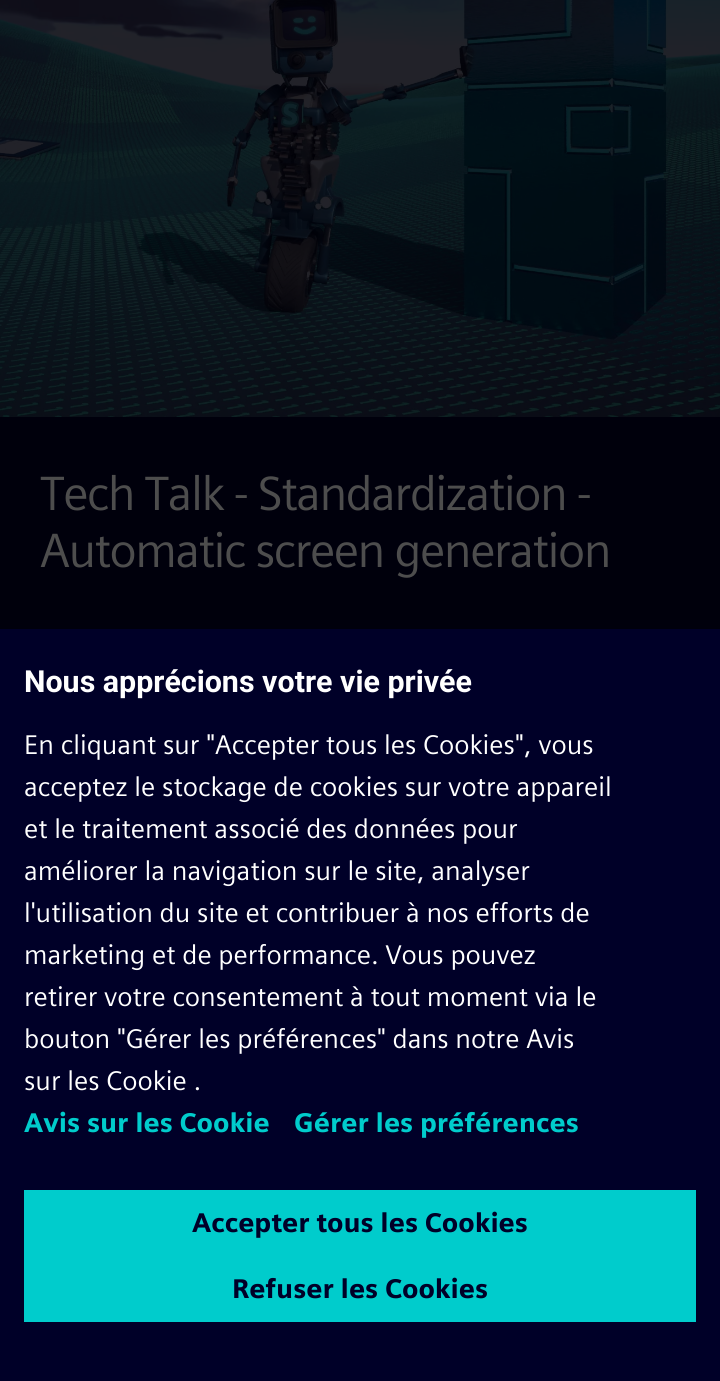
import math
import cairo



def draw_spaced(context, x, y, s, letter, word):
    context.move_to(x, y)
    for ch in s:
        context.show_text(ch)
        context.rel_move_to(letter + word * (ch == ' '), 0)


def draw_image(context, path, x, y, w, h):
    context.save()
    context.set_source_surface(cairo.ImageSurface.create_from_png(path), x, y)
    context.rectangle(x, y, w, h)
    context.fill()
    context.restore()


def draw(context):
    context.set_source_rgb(0, 0, 12 / 255)
    context.paint()
    draw_image(context, "images/1.png", 0, 0, 720, 417)
    context.set_source_rgb(0, 0, 40 / 255)
    context.rectangle(0, 629, 720, 752)
    context.fill()
    context.set_source_rgb(0, 204 / 255, 204 / 255)
    context.rectangle(24, 1190, 672, 132)
    context.fill()
    context.select_font_face("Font")
    context.set_font_size(48)
    context.set_source_rgb(77 / 255, 77 / 255, 77 / 255)
    draw_spaced(context, 40, 510, "Tech Talk - Standardization -", -1.5, 0)
    draw_spaced(context, 40, 567, "Automatic screen generation", -1.5, 0)
    context.select_font_face("Roboto", cairo.FontSlant.NORMAL, cairo.FontWeight.BOLD)
    context.set_font_size(30.4)
    context.set_source_rgb(1, 1, 1)
    context.move_to(24, 692)
    context.show_text("Nous apprécions votre vie privée")
    context.select_font_face("Font")
    context.set_font_size(27)
    context.move_to(24, 754)
    context.show_text("En cliquant sur \"Accepter tous les Cookies\", vous")
    context.move_to(24, 796)
    context.show_text("acceptez le stockage de cookies sur votre appareil")
    context.move_to(24, 838)
    context.show_text("et le traitement associé des données pour")
    context.move_to(24, 880)
    context.show_text("améliorer la navigation sur le site, analyser")
    context.move_to(24, 922)
    context.show_text("l'utilisation du site et contribuer à nos efforts de")
    context.move_to(24, 964)
    context.show_text("marketing et de performance. Vous pouvez")
    context.move_to(24, 1006)
    context.show_text("retirer votre consentement à tout moment via le")
    context.move_to(24, 1048)
    context.show_text("bouton \"Gérer les préférences\" dans notre Avis")
    context.move_to(24, 1090)
    context.show_text("sur les Cookie .")
    context.select_font_face("Font", cairo.FontSlant.NORMAL, cairo.FontWeight.BOLD)
    context.set_source_rgb(0, 204 / 255, 204 / 255)
    context.move_to(24, 1132)
    context.show_text("Avis sur les Cookie")
    context.move_to(294, 1132)
    context.show_text("Gérer les préférences")
    context.set_source_rgb(0, 0, 40 / 255)
    context.move_to(192, 1232)
    context.show_text("Accepter tous les Cookies")
    context.move_to(232, 1298)
    context.show_text("Refuser les Cookies")


surface = cairo.ImageSurface(cairo.Format.RGB24, 720, 1381)
context = cairo.Context(surface)
options = cairo.FontOptions()
options.set_hint_metrics(cairo.HintMetrics.OFF)
options.set_hint_style(cairo.HintStyle.NONE)
context.set_font_options(options)
context.set_miter_limit(4)
draw(context)
surface.write_to_png("out.png")
